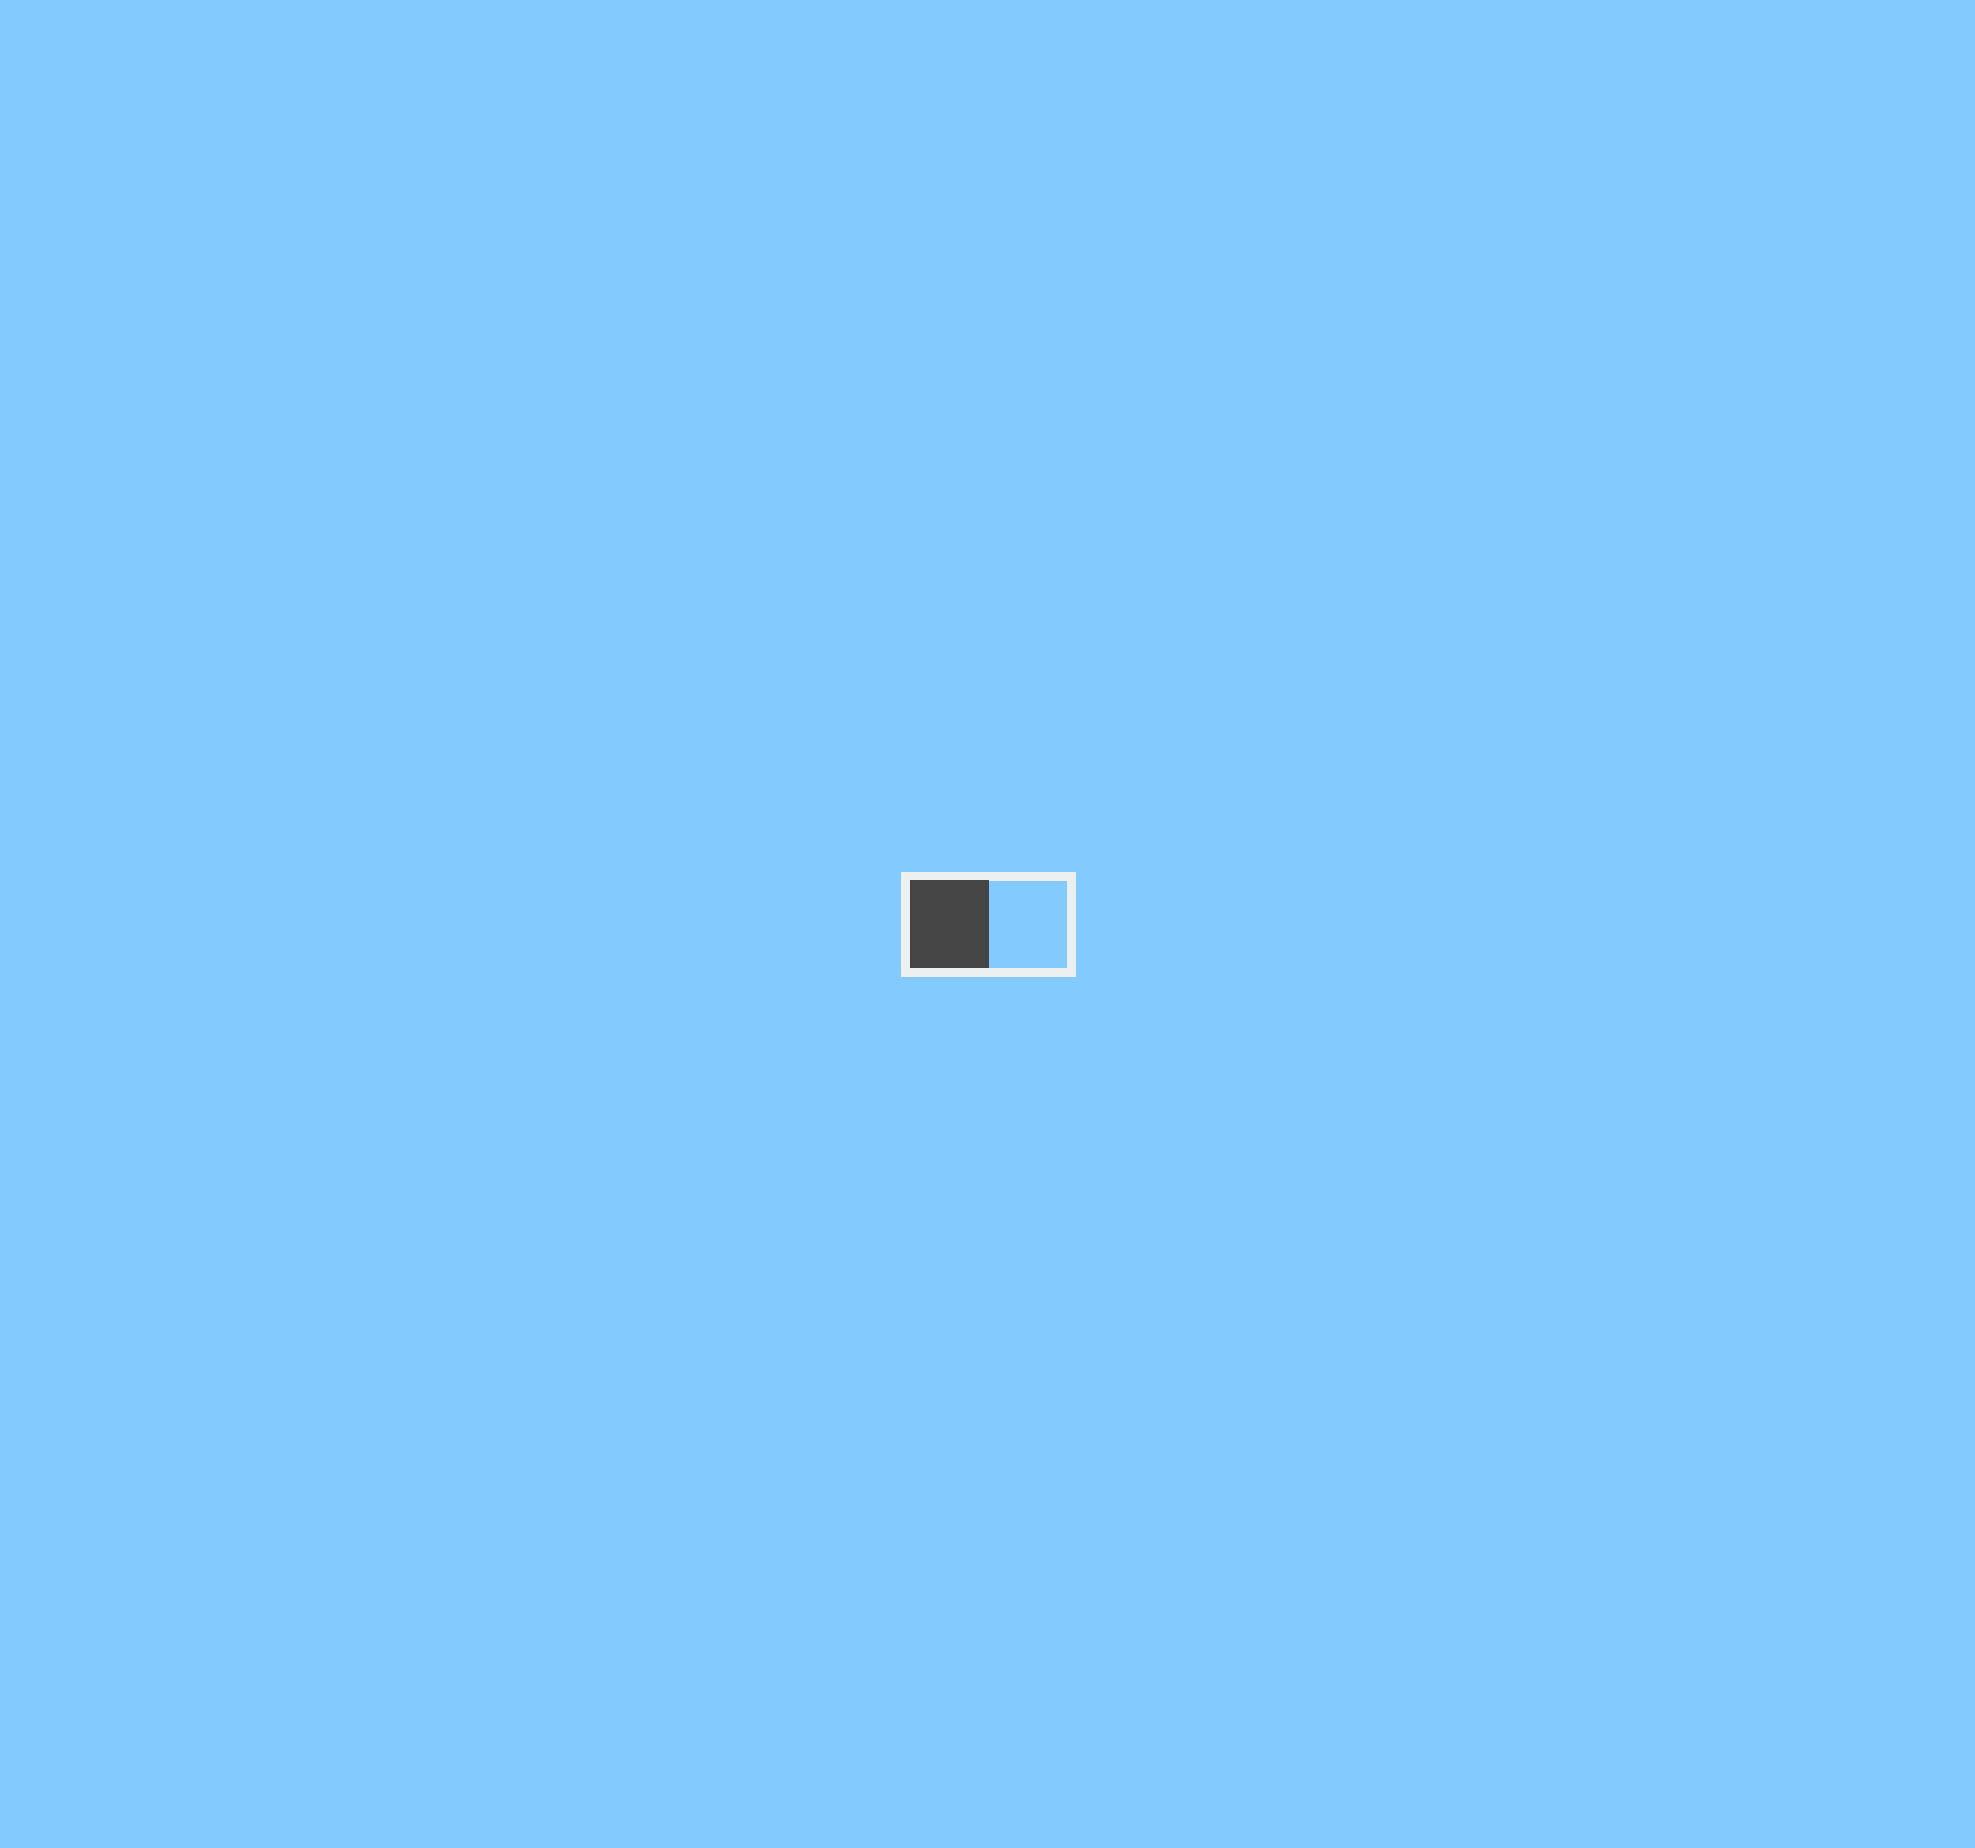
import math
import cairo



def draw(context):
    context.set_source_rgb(130 / 255, 202 / 255, 1)
    context.paint()
    context.rectangle(905.5, 876.5, 166, 96)
    context.set_source_rgb(236 / 255, 240 / 255, 241 / 255)
    context.set_line_width(9)
    context.stroke()
    context.set_source_rgb(69 / 255, 69 / 255, 69 / 255)
    context.rectangle(910, 880, 79, 88)
    context.fill()


surface = cairo.ImageSurface(cairo.Format.RGB24, 1975, 1848)
context = cairo.Context(surface)
options = cairo.FontOptions()
options.set_hint_metrics(cairo.HintMetrics.OFF)
options.set_hint_style(cairo.HintStyle.NONE)
context.set_font_options(options)
context.set_miter_limit(4)
draw(context)
surface.write_to_png("out.png")
